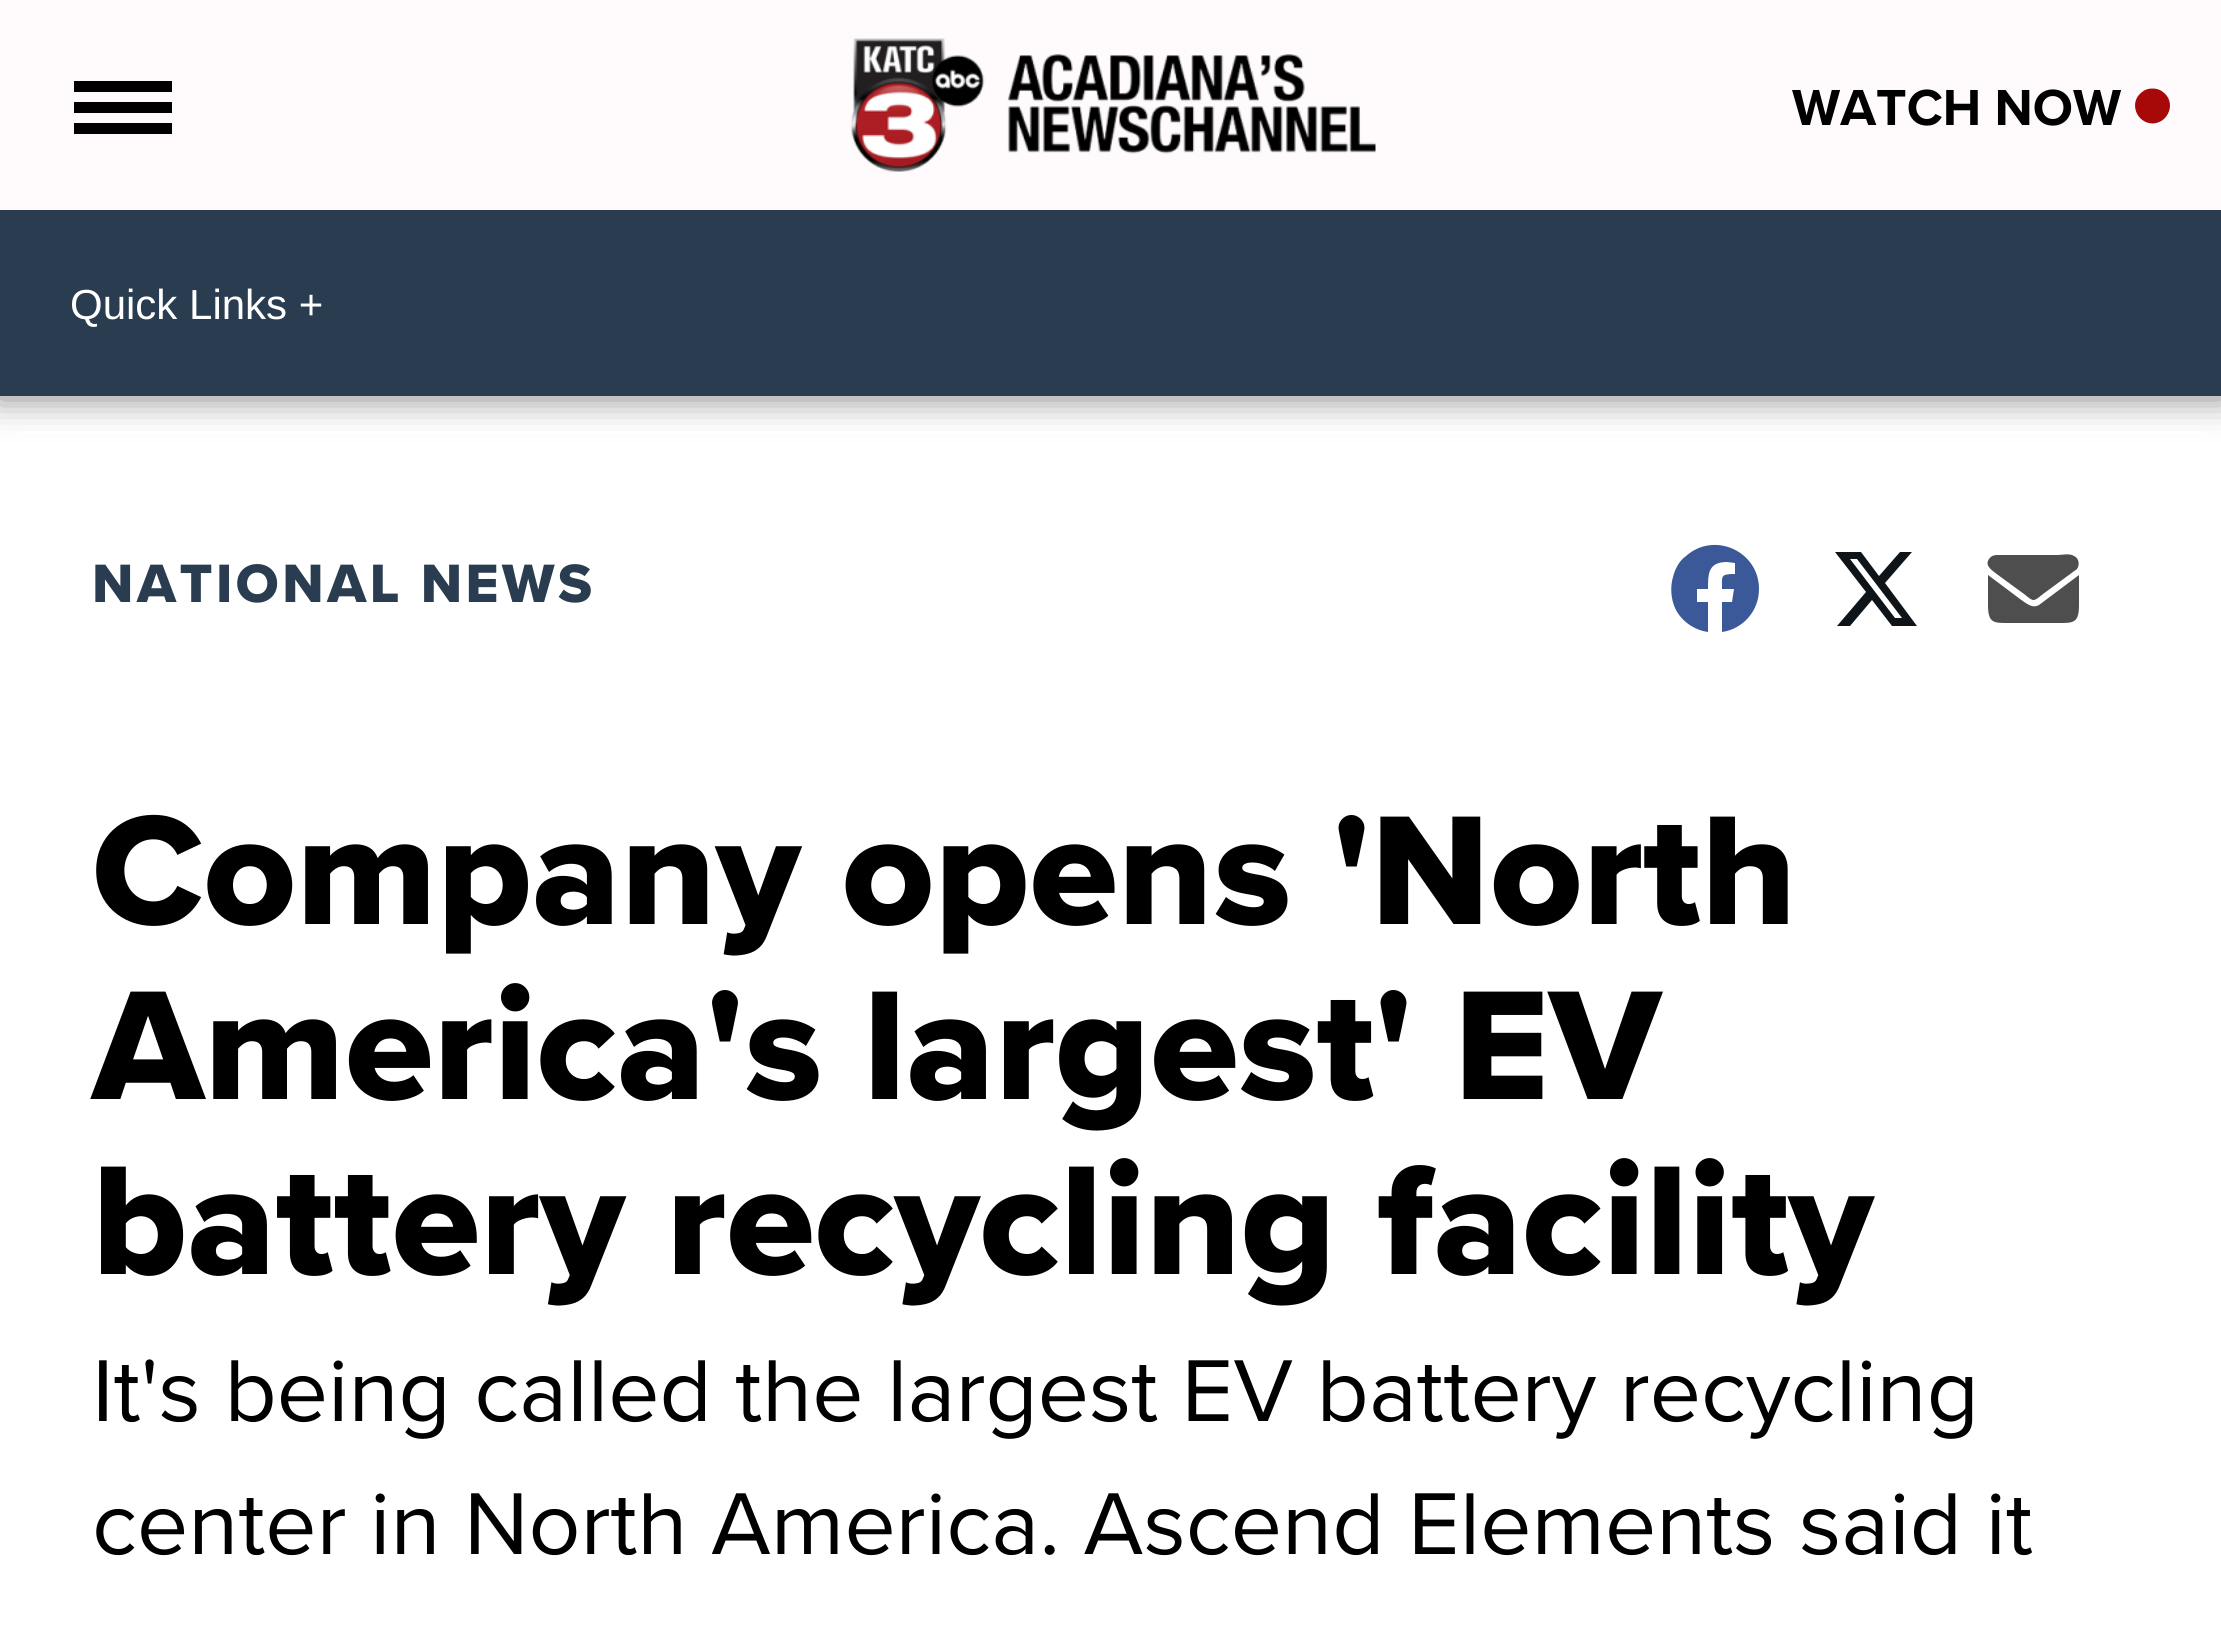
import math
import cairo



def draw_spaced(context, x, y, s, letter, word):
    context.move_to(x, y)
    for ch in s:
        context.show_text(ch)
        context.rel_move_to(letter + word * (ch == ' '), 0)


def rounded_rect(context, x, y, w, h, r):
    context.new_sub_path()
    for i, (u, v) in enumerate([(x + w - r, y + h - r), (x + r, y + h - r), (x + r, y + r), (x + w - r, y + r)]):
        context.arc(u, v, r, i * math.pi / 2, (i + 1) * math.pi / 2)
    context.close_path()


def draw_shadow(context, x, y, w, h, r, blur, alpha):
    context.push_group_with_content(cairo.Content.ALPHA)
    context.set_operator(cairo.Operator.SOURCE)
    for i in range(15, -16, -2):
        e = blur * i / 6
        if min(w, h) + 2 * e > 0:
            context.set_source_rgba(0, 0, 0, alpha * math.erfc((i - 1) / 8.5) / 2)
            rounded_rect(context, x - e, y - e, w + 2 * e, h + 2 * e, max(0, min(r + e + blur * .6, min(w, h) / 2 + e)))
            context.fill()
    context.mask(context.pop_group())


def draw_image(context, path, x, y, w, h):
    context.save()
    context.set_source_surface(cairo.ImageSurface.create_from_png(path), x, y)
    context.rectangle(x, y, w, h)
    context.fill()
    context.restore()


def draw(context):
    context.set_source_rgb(1, 1, 1)
    context.paint()
    context.set_source_rgb(97 / 255, 97 / 255, 97 / 255)
    draw_shadow(context, -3, -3, 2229, 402, 0, 17.5, 0.76)
    context.set_source_rgb(1, 251 / 255, 253 / 255)
    context.rectangle(0, 0, 2221, 210)
    context.fill()
    context.set_source_rgb(0, 0, 0)
    context.rectangle(74, 81, 98, 11)
    context.fill()
    context.rectangle(74, 102, 98, 11)
    context.fill()
    context.rectangle(74, 123, 98, 11)
    context.fill()
    draw_image(context, "images/1.png", 850, 38, 526, 134)
    context.set_source_rgb(167 / 255, 8 / 255, 8 / 255)
    context.new_path()
    context.move_to(2152.5, 123.5)
    context.curve_to(2169, 123, 2176.5, 102, 2163, 92)
    context.curve_to(2160, 89.5, 2156.5, 88.5, 2152.5, 88.5)
    context.curve_to(2148.5, 88.5, 2145, 89.5, 2142, 92)
    context.curve_to(2128.5, 102, 2136, 123, 2152.5, 123.5)
    context.close_path()
    context.fill()
    context.set_source_rgb(42 / 255, 60 / 255, 79 / 255)
    context.rectangle(0, 210, 2221, 186)
    context.fill()
    context.set_source_rgb(1, 1, 1)
    context.rectangle(21, 431, 2181, 3)
    context.fill()
    context.set_source_rgb(59 / 255, 89 / 255, 152 / 255)
    context.new_path()
    context.move_to(1759, 589)
    context.curve_to(1759, 551, 1714, 531, 1686, 556)
    context.curve_to(1679, 561, 1675, 569, 1673, 577)
    context.curve_to(1670, 587, 1671, 599, 1675, 608)
    context.curve_to(1681, 621, 1694, 630, 1708, 632)
    context.line_to(1708, 602)
    context.line_to(1697, 602)
    context.line_to(1697, 589)
    context.line_to(1708, 589)
    context.curve_to(1708, 574, 1708, 562, 1727, 562)
    context.line_to(1735, 563)
    context.line_to(1735, 574)
    context.curve_to(1720, 574, 1722, 576, 1722, 589)
    context.line_to(1734, 589)
    context.line_to(1732, 602)
    context.line_to(1722, 602)
    context.line_to(1722, 632)
    context.curve_to(1743, 629, 1759, 611, 1759, 589)
    context.close_path()
    context.fill()
    context.set_source_rgb(15 / 255, 20 / 255, 25 / 255)
    context.new_path()
    context.move_to(1900, 552)
    context.line_to(1912, 552)
    context.line_to(1885, 583)
    context.line_to(1917, 626)
    context.line_to(1892, 626)
    context.line_to(1872, 600)
    context.line_to(1850, 626)
    context.line_to(1837, 626)
    context.line_to(1866, 592)
    context.line_to(1835, 552)
    context.line_to(1861, 552)
    context.line_to(1879, 576)
    context.close_path()
    context.move_to(1895, 618)
    context.line_to(1902, 618)
    context.line_to(1857, 559)
    context.line_to(1850, 559)
    context.close_path()
    context.fill()
    context.set_source_rgb(78 / 255, 78 / 255, 78 / 255)
    context.new_path()
    context.move_to(1997, 555)
    context.curve_to(1994, 555, 1991, 556, 1989, 559)
    context.curve_to(1984, 566, 1993, 571, 1998, 575)
    context.line_to(2024, 594)
    context.curve_to(2034, 602, 2033, 602, 2043, 594)
    context.line_to(2077, 569)
    context.curve_to(2080, 565, 2079, 558, 2074, 556)
    context.curve_to(2070, 553, 2061, 555, 2058, 555)
    context.close_path()
    context.move_to(1988, 575)
    context.line_to(1988, 605)
    context.curve_to(1988, 624, 1994, 623, 2011, 623)
    context.line_to(2056, 623)
    context.curve_to(2073, 623, 2079, 624, 2079, 605)
    context.line_to(2079, 575)
    context.line_to(2039, 605)
    context.curve_to(2032, 609, 2026, 603, 2020, 599)
    context.close_path()
    context.fill()
    context.select_font_face("Proxima Nova", cairo.FontSlant.NORMAL, cairo.FontWeight.BOLD)
    context.set_font_size(52.5)
    context.set_source_rgb(0, 0, 0)
    context.move_to(1792, 125)
    context.show_text("WATCH NOW")
    context.select_font_face("Liberation Sans")
    context.set_font_size(42)
    context.set_source_rgb(1, 1, 1)
    context.move_to(70, 319)
    context.show_text("Quick Links +")
    context.select_font_face("Proxima Nova ExtraBold")
    context.set_font_size(56)
    context.set_source_rgb(42 / 255, 60 / 255, 79 / 255)
    draw_spaced(context, 92, 602, "NATIONAL NEWS", 3.5, 0)
    context.set_font_size(161)
    context.set_source_rgb(0, 0, 0)
    context.move_to(92, 924)
    context.show_text("Company opens 'North")
    context.move_to(92, 1099)
    context.show_text("America's largest' EV")
    context.move_to(92, 1274)
    context.show_text("battery recycling facility")
    context.select_font_face("Proxima Nova")
    context.set_font_size(91)
    context.move_to(92, 1421)
    context.show_text("It's being called the largest EV battery recycling")
    context.move_to(92, 1554)
    context.show_text("center in North America. Ascend Elements said it")


surface = cairo.ImageSurface(cairo.Format.RGB24, 2221, 1641)
context = cairo.Context(surface)
options = cairo.FontOptions()
options.set_hint_metrics(cairo.HintMetrics.OFF)
options.set_hint_style(cairo.HintStyle.NONE)
context.set_font_options(options)
context.set_miter_limit(4)
draw(context)
surface.write_to_png("out.png")
